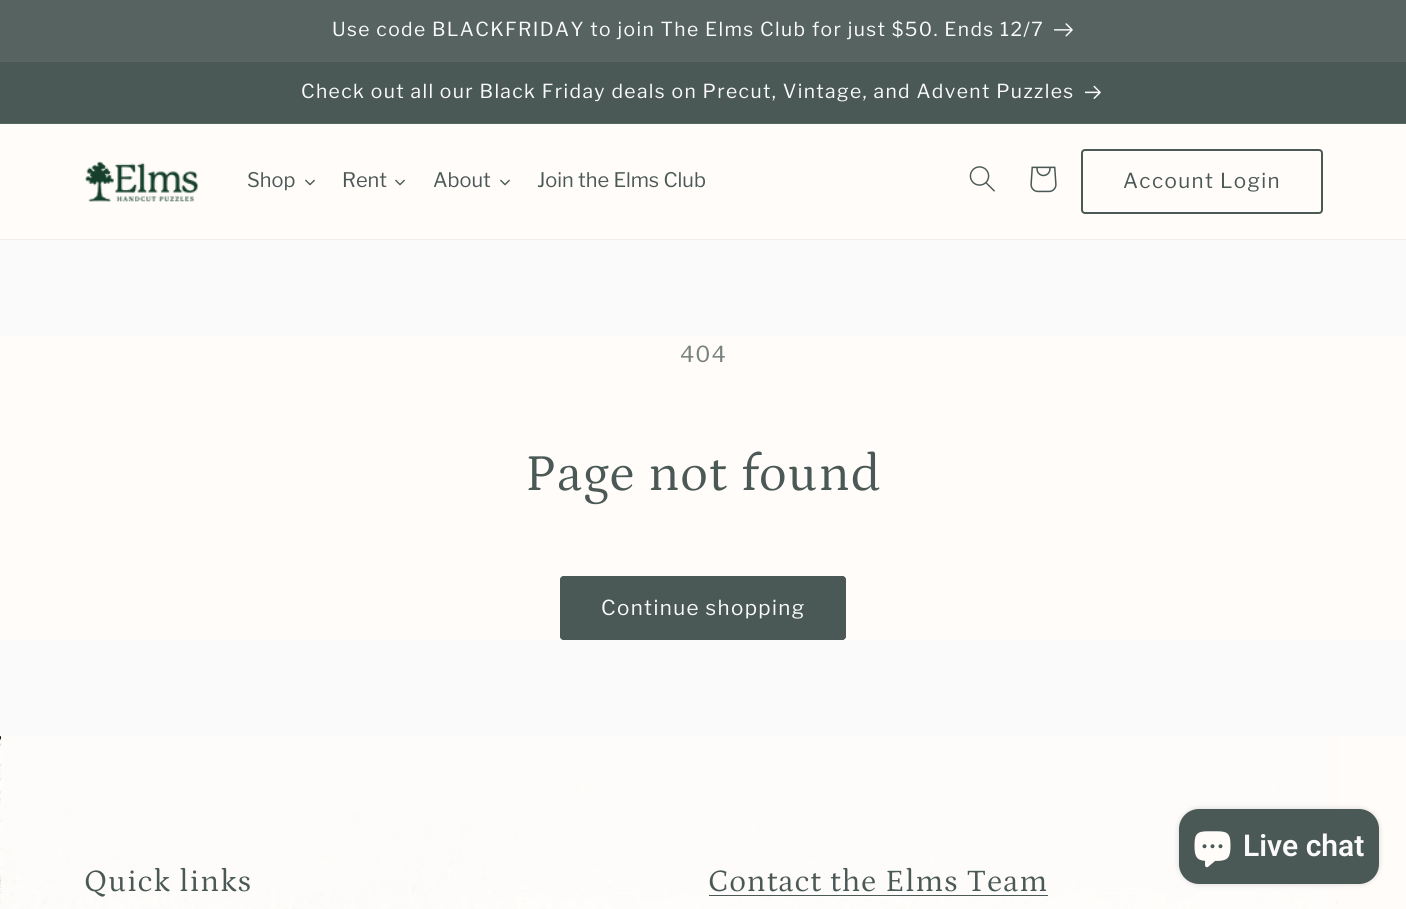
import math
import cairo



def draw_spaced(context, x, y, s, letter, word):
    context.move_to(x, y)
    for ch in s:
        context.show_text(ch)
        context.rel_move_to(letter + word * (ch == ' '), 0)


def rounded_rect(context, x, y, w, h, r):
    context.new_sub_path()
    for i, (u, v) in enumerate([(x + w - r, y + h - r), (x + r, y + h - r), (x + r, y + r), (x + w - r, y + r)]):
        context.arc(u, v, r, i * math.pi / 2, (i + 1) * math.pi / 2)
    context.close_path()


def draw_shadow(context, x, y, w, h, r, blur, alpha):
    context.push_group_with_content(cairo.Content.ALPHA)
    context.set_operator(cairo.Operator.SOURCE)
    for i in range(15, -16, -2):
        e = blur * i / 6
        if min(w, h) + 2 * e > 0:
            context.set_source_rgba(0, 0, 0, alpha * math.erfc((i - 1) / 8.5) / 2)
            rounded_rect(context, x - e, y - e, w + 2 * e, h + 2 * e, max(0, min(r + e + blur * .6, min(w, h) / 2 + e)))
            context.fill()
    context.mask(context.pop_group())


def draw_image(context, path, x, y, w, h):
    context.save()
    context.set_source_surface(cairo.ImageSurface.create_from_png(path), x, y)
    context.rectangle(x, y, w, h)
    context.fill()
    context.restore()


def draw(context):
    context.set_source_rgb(250 / 255, 250 / 255, 250 / 255)
    context.paint()
    context.set_source_rgb(75 / 255, 89 / 255, 86 / 255)
    context.rectangle(0, 62, 1406, 61)
    context.fill()
    context.set_source_rgb(89 / 255, 102 / 255, 99 / 255)
    context.rectangle(0, 61, 1406, 1)
    context.fill()
    context.set_source_rgb(86 / 255, 99 / 255, 96 / 255)
    context.rectangle(0, 0, 1406, 61)
    context.fill()
    draw_image(context, "images/1.png", 1054, 23, 19, 14)
    context.set_source_rgb(89 / 255, 102 / 255, 99 / 255)
    context.rectangle(0, 123, 1406, 1)
    context.fill()
    draw_image(context, "images/2.png", 1085, 85, 16, 14)
    context.set_source_rgb(1, 252 / 255, 250 / 255)
    context.rectangle(0, 124, 1406, 115)
    context.fill()
    context.set_source_rgb(241 / 255, 239 / 255, 237 / 255)
    context.rectangle(0, 239, 1406, 1)
    context.fill()
    draw_image(context, "images/3.png", 85, 161, 113, 41)
    draw_image(context, "images/4.png", 305, 179, 10, 7)
    draw_image(context, "images/4.png", 395, 179, 10, 7)
    draw_image(context, "images/4.png", 500, 179, 10, 7)
    draw_image(context, "images/5.png", 969, 166, 26, 26)
    draw_image(context, "images/6.png", 1030, 166, 27, 27)
    rounded_rect(context, 1082, 150, 240, 63, 3)
    context.set_source_rgb(75 / 255, 89 / 255, 86 / 255)
    context.stroke()
    context.set_source_rgb(1, 252 / 255, 250 / 255)
    context.rectangle(0, 336, 1406, 304)
    context.fill()
    context.set_source_rgb(75 / 255, 89 / 255, 86 / 255)
    rounded_rect(context, 560, 576, 286, 64, 4)
    context.fill()
    rounded_rect(context, 560.5, 576.5, 285, 63, 3.5)
    context.set_line_width(1)
    context.stroke()
    context.set_source_rgb(1, 252 / 255, 250 / 255)
    context.rectangle(0, 736, 1406, 173)
    context.fill()
    draw_image(context, "images/8.png", 0, 736, 1338, 173)
    context.set_source_rgb(0, 0, 0)
    draw_shadow(context, 1179, 809, 200, 75, 20, 3, 0.15)
    context.set_source_rgb(75 / 255, 89 / 255, 86 / 255)
    rounded_rect(context, 1179, 809, 200, 75, 20)
    context.fill()
    draw_image(context, "images/7.png", 1194, 831, 37, 37)
    context.rectangle(709, 895, 339, 1)
    context.fill()
    context.select_font_face("Libre Franklin")
    context.set_font_size(19.25)
    context.set_source_rgb(250 / 255, 250 / 255, 250 / 255)
    draw_spaced(context, 332, 36, "Use code BLACKFRIDAY to join The Elms Club for just $50. Ends 12/7", 1.38, 0)
    draw_spaced(context, 301, 98, "Check out all our Black Friday deals on Precut, Vintage, and Advent Puzzles", 1.38, 0)
    context.set_font_size(20)
    context.set_source_rgb(75 / 255, 89 / 255, 86 / 255)
    context.move_to(247, 187)
    context.show_text("Shop")
    context.move_to(342, 187)
    context.show_text("Rent")
    context.move_to(433, 187)
    context.show_text("About")
    context.move_to(537, 187)
    context.show_text("Join the Elms Club")
    context.set_font_size(20.6)
    draw_spaced(context, 1123, 188, "Account Login", 1.38, 0)
    context.set_font_size(22)
    context.set_source_rgb(120 / 255, 130 / 255, 127 / 255)
    draw_spaced(context, 680, 362, "404", 1, 0)
    context.select_font_face("Petrona")
    context.set_font_size(52.5)
    context.set_source_rgb(75 / 255, 89 / 255, 86 / 255)
    draw_spaced(context, 525, 490, "Page not found", 1.05, 0)
    context.select_font_face("Libre Franklin")
    context.set_font_size(20.6)
    context.set_source_rgb(250 / 255, 250 / 255, 250 / 255)
    draw_spaced(context, 601, 615, "Continue shopping", 1.38, 0)
    context.select_font_face("Roboto SemiBold")
    context.set_font_size(30)
    context.move_to(1243, 856)
    context.show_text("Live chat")
    context.select_font_face("Petrona")
    context.set_font_size(31.5)
    context.set_source_rgb(75 / 255, 89 / 255, 86 / 255)
    draw_spaced(context, 84, 891, "Quick links", 1.05, 0)
    draw_spaced(context, 708, 891, "Contact the Elms Team", 1.05, 0)


surface = cairo.ImageSurface(cairo.Format.RGB24, 1406, 909)
context = cairo.Context(surface)
options = cairo.FontOptions()
options.set_hint_metrics(cairo.HintMetrics.OFF)
options.set_hint_style(cairo.HintStyle.NONE)
context.set_font_options(options)
context.set_miter_limit(4)
draw(context)
surface.write_to_png("out.png")
